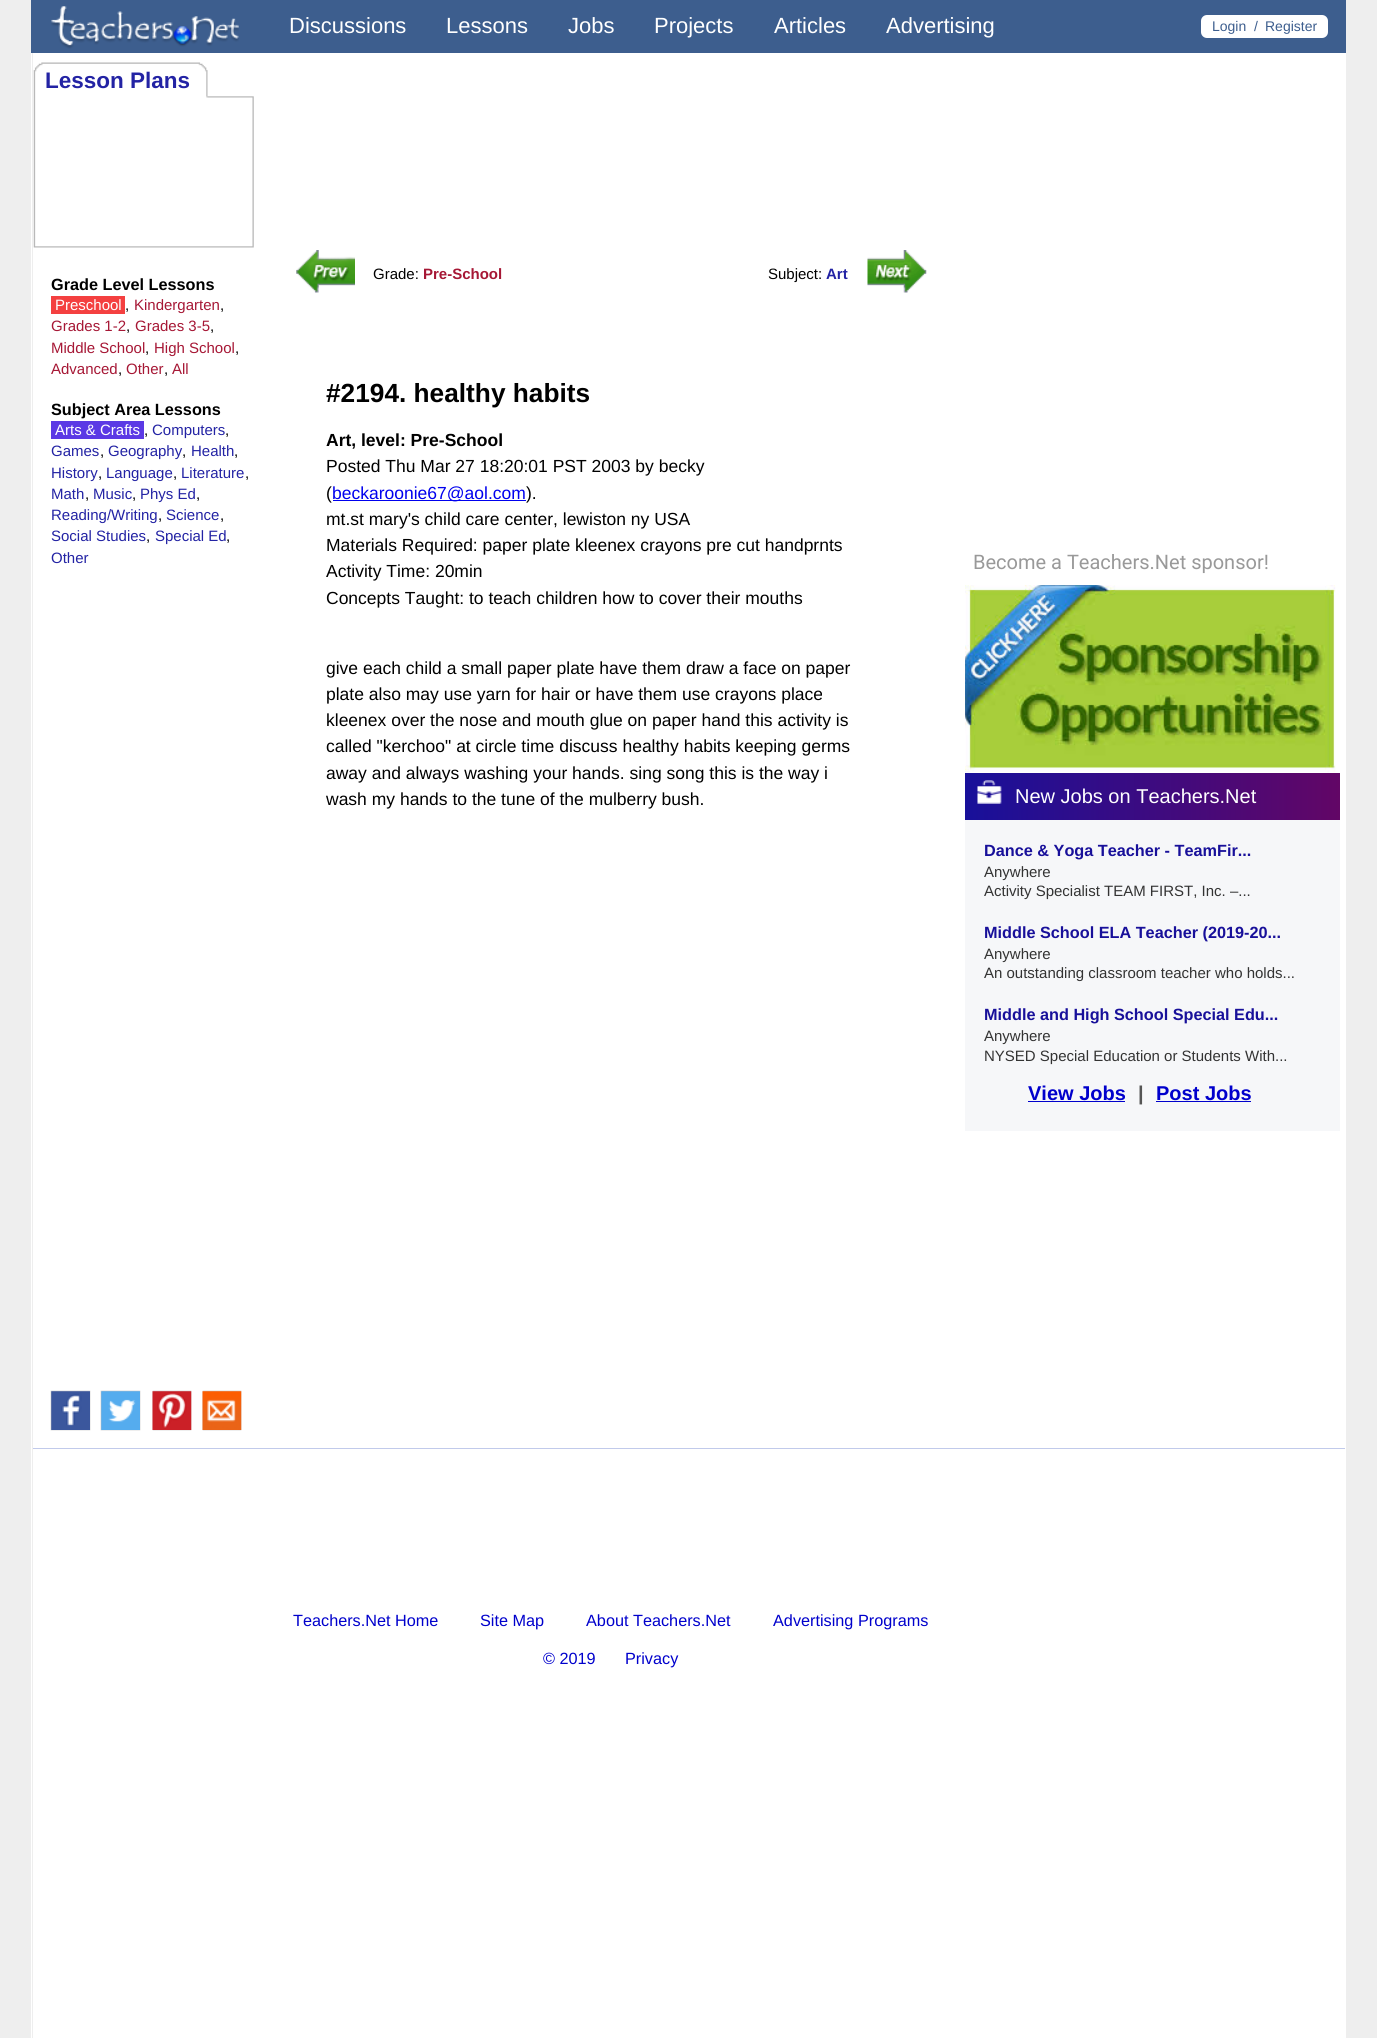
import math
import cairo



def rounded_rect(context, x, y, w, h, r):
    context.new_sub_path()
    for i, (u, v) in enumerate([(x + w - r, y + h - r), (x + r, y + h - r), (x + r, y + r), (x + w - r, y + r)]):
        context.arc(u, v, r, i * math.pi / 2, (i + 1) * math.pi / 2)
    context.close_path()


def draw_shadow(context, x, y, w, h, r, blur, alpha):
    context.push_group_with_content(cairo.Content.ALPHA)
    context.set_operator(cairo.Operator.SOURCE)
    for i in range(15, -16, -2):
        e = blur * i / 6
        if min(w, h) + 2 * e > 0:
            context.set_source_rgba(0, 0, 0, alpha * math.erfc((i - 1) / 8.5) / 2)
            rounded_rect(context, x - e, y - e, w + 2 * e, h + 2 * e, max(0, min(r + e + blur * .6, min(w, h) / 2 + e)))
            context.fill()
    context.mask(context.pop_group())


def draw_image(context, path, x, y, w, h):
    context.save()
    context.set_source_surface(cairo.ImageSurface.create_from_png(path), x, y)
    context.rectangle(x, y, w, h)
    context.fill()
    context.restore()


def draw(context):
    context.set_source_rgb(238 / 255, 238 / 255, 238 / 255)
    context.paint()
    context.set_source_rgb(61 / 255, 94 / 255, 142 / 255)
    context.rectangle(31, 0, 1315, 53)
    context.fill()
    draw_image(context, "images/1.png", 51, 6, 188, 43)
    context.set_source_rgb(1, 1, 1)
    rounded_rect(context, 1201, 15, 127, 23, 6)
    context.fill()
    context.rectangle(31, 53, 1, 1985)
    context.fill()
    context.rectangle(33, 53, 1313, 1985)
    context.fill()
    draw_image(context, "images/2.png", 33, 62, 221, 186)
    context.set_source_rgb(244 / 255, 64 / 255, 64 / 255)
    context.rectangle(51, 296, 74, 18)
    context.fill()
    context.set_source_rgb(91 / 255, 57 / 255, 229 / 255)
    context.rectangle(51, 421, 93, 18)
    context.fill()
    context.set_source_rgb(187 / 255, 187 / 255, 187 / 255)
    draw_shadow(context, 51, 1391, 39, 39, 0, 0.5, 1)
    draw_shadow(context, 101, 1391, 39, 39, 0, 0.5, 1)
    draw_shadow(context, 153, 1391, 38, 39, 0, 0.5, 1)
    draw_shadow(context, 203, 1391, 38, 39, 0, 0.5, 1)
    draw_image(context, "images/3.png", 51, 1391, 39, 39)
    draw_image(context, "images/4.png", 101, 1391, 39, 39)
    draw_image(context, "images/5.png", 152, 1391, 40, 39)
    draw_image(context, "images/6.png", 202, 1391, 40, 39)
    draw_image(context, "images/7.png", 296, 250, 59, 43)
    draw_image(context, "images/8.png", 867, 250, 60, 43)
    context.set_source_rgb(0, 0, 238 / 255)
    context.rectangle(333, 500, 193, 1)
    context.fill()
    draw_image(context, "images/9.png", 965, 585, 371, 188)
    context.set_source_rgb(246 / 255, 247 / 255, 249 / 255)
    context.rectangle(965, 820, 375, 311)
    context.fill()
    gradient = cairo.LinearGradient(965, 796, 1340, 796)
    gradient.add_color_stop_rgba(0, 24 / 255, 16 / 255, 154 / 255, 1)
    gradient.add_color_stop_rgba(1, 98 / 255, 6 / 255, 102 / 255, 1)
    context.set_source(gradient)
    context.rectangle(965, 773, 375, 47)
    context.fill()
    draw_image(context, "images/10.png", 977, 780, 25, 24)
    context.set_source_rgb(0, 0, 204 / 255)
    context.rectangle(1028, 1101, 97, 1)
    context.fill()
    context.rectangle(1156, 1101, 95, 1)
    context.fill()
    context.set_source_rgb(193 / 255, 202 / 255, 235 / 255)
    context.rectangle(33, 1448, 1312, 1)
    context.fill()
    context.select_font_face("Liberation Sans")
    context.set_font_size(22)
    context.set_source_rgb(1, 1, 1)
    context.move_to(289, 33)
    context.show_text("Discussions")
    context.move_to(446, 33)
    context.show_text("Lessons")
    context.move_to(568, 33)
    context.show_text("Jobs")
    context.move_to(654, 33)
    context.show_text("Projects")
    context.move_to(774, 33)
    context.show_text("Articles")
    context.move_to(886, 33)
    context.show_text("Advertising")
    context.set_font_size(14)
    context.set_source_rgb(61 / 255, 94 / 255, 142 / 255)
    context.move_to(1212, 31)
    context.show_text("Login")
    context.move_to(1254, 31)
    context.show_text("/")
    context.move_to(1265, 31)
    context.show_text("Register")
    context.select_font_face("Liberation Sans", cairo.FontSlant.NORMAL, cairo.FontWeight.BOLD)
    context.set_font_size(22.5)
    context.set_source_rgb(35 / 255, 35 / 255, 164 / 255)
    context.move_to(45, 88)
    context.show_text("Lesson Plans")
    context.set_font_size(16.25)
    context.set_source_rgb(0, 0, 0)
    context.move_to(51, 290)
    context.show_text("Grade Level Lessons")
    context.select_font_face("Liberation Sans")
    context.set_font_size(15)
    context.set_source_rgb(1, 1, 1)
    context.move_to(55, 310)
    context.show_text("Preschool")
    context.set_source_rgb(0, 0, 0)
    context.move_to(125, 310)
    context.show_text(",")
    context.set_source_rgb(166 / 255, 23 / 255, 53 / 255)
    context.move_to(134, 310)
    context.show_text("Kindergarten")
    context.set_source_rgb(0, 0, 0)
    context.move_to(220, 310)
    context.show_text(",")
    context.set_source_rgb(166 / 255, 23 / 255, 53 / 255)
    context.move_to(51, 331)
    context.show_text("Grades 1-2")
    context.set_source_rgb(0, 0, 0)
    context.move_to(126, 331)
    context.show_text(",")
    context.set_source_rgb(166 / 255, 23 / 255, 53 / 255)
    context.move_to(135, 331)
    context.show_text("Grades 3-5")
    context.set_source_rgb(0, 0, 0)
    context.move_to(210, 331)
    context.show_text(",")
    context.set_source_rgb(166 / 255, 23 / 255, 53 / 255)
    context.move_to(51, 353)
    context.show_text("Middle School")
    context.set_source_rgb(0, 0, 0)
    context.move_to(145, 353)
    context.show_text(",")
    context.set_source_rgb(166 / 255, 23 / 255, 53 / 255)
    context.move_to(154, 353)
    context.show_text("High School")
    context.set_source_rgb(0, 0, 0)
    context.move_to(235, 353)
    context.show_text(",")
    context.set_source_rgb(166 / 255, 23 / 255, 53 / 255)
    context.move_to(51, 374)
    context.show_text("Advanced")
    context.set_source_rgb(0, 0, 0)
    context.move_to(118, 374)
    context.show_text(",")
    context.set_source_rgb(166 / 255, 23 / 255, 53 / 255)
    context.move_to(126, 374)
    context.show_text("Other")
    context.set_source_rgb(0, 0, 0)
    context.move_to(164, 374)
    context.show_text(",")
    context.set_source_rgb(166 / 255, 23 / 255, 53 / 255)
    context.move_to(172, 374)
    context.show_text("All")
    context.select_font_face("Liberation Sans", cairo.FontSlant.NORMAL, cairo.FontWeight.BOLD)
    context.set_font_size(16.25)
    context.set_source_rgb(0, 0, 0)
    context.move_to(51, 415)
    context.show_text("Subject Area Lessons")
    context.select_font_face("Liberation Sans")
    context.set_font_size(15)
    context.set_source_rgb(1, 1, 1)
    context.move_to(55, 435)
    context.show_text("Arts & Crafts")
    context.set_source_rgb(0, 0, 0)
    context.move_to(144, 435)
    context.show_text(",")
    context.set_source_rgb(35 / 255, 35 / 255, 164 / 255)
    context.move_to(152, 435)
    context.show_text("Computers")
    context.set_source_rgb(0, 0, 0)
    context.move_to(225, 435)
    context.show_text(",")
    context.set_source_rgb(35 / 255, 35 / 255, 164 / 255)
    context.move_to(51, 456)
    context.show_text("Games")
    context.set_source_rgb(0, 0, 0)
    context.move_to(100, 456)
    context.show_text(",")
    context.set_source_rgb(35 / 255, 35 / 255, 164 / 255)
    context.move_to(108, 456)
    context.show_text("Geography")
    context.set_source_rgb(0, 0, 0)
    context.move_to(182, 456)
    context.show_text(",")
    context.set_source_rgb(35 / 255, 35 / 255, 164 / 255)
    context.move_to(191, 456)
    context.show_text("Health")
    context.set_source_rgb(0, 0, 0)
    context.move_to(234, 456)
    context.show_text(",")
    context.set_source_rgb(35 / 255, 35 / 255, 164 / 255)
    context.move_to(51, 478)
    context.show_text("History")
    context.set_source_rgb(0, 0, 0)
    context.move_to(98, 478)
    context.show_text(",")
    context.set_source_rgb(35 / 255, 35 / 255, 164 / 255)
    context.move_to(106, 478)
    context.show_text("Language")
    context.set_source_rgb(0, 0, 0)
    context.move_to(173, 478)
    context.show_text(",")
    context.set_source_rgb(35 / 255, 35 / 255, 164 / 255)
    context.move_to(181, 478)
    context.show_text("Literature")
    context.set_source_rgb(0, 0, 0)
    context.move_to(245, 478)
    context.show_text(",")
    context.set_source_rgb(35 / 255, 35 / 255, 164 / 255)
    context.move_to(51, 499)
    context.show_text("Math")
    context.set_source_rgb(0, 0, 0)
    context.move_to(85, 499)
    context.show_text(",")
    context.set_source_rgb(35 / 255, 35 / 255, 164 / 255)
    context.move_to(93, 499)
    context.show_text("Music")
    context.set_source_rgb(0, 0, 0)
    context.move_to(132, 499)
    context.show_text(",")
    context.set_source_rgb(35 / 255, 35 / 255, 164 / 255)
    context.move_to(140, 499)
    context.show_text("Phys Ed")
    context.set_source_rgb(0, 0, 0)
    context.move_to(196, 499)
    context.show_text(",")
    context.set_source_rgb(35 / 255, 35 / 255, 164 / 255)
    context.move_to(51, 520)
    context.show_text("Reading/Writing")
    context.set_source_rgb(0, 0, 0)
    context.move_to(158, 520)
    context.show_text(",")
    context.set_source_rgb(35 / 255, 35 / 255, 164 / 255)
    context.move_to(166, 520)
    context.show_text("Science")
    context.set_source_rgb(0, 0, 0)
    context.move_to(220, 520)
    context.show_text(",")
    context.set_source_rgb(35 / 255, 35 / 255, 164 / 255)
    context.move_to(51, 541)
    context.show_text("Social Studies")
    context.set_source_rgb(0, 0, 0)
    context.move_to(146, 541)
    context.show_text(",")
    context.set_source_rgb(35 / 255, 35 / 255, 164 / 255)
    context.move_to(155, 541)
    context.show_text("Special Ed")
    context.set_source_rgb(0, 0, 0)
    context.move_to(226, 541)
    context.show_text(",")
    context.set_source_rgb(35 / 255, 35 / 255, 164 / 255)
    context.move_to(51, 563)
    context.show_text("Other")
    context.set_source_rgb(0, 0, 0)
    context.move_to(373, 279)
    context.show_text("Grade:")
    context.select_font_face("Liberation Sans", cairo.FontSlant.NORMAL, cairo.FontWeight.BOLD)
    context.set_source_rgb(166 / 255, 23 / 255, 53 / 255)
    context.move_to(423, 279)
    context.show_text("Pre-School")
    context.select_font_face("Liberation Sans")
    context.set_source_rgb(0, 0, 0)
    context.move_to(768, 279)
    context.show_text("Subject:")
    context.select_font_face("Liberation Sans", cairo.FontSlant.NORMAL, cairo.FontWeight.BOLD)
    context.set_source_rgb(35 / 255, 35 / 255, 164 / 255)
    context.move_to(826, 279)
    context.show_text("Art")
    context.set_font_size(26.25)
    context.set_source_rgb(0, 0, 0)
    context.move_to(326, 402)
    context.show_text("#2194. healthy habits")
    context.set_font_size(17.5)
    context.move_to(326, 446)
    context.show_text("Art, level: Pre-School")
    context.select_font_face("Liberation Sans")
    context.move_to(326, 472)
    context.show_text("Posted Thu Mar 27 18:20:01 PST 2003 by becky")
    context.move_to(326, 499)
    context.show_text("(")
    context.set_source_rgb(0, 0, 238 / 255)
    context.move_to(332, 499)
    context.show_text("beckaroonie67@aol.com")
    context.set_source_rgb(0, 0, 0)
    context.move_to(526, 499)
    context.show_text(").")
    context.move_to(326, 525)
    context.show_text("mt.st mary's child care center, lewiston ny USA")
    context.move_to(326, 551)
    context.show_text("Materials Required: paper plate kleenex crayons pre cut handprnts")
    context.move_to(326, 577)
    context.show_text("Activity Time: 20min")
    context.move_to(326, 604)
    context.show_text("Concepts Taught: to teach children how to cover their mouths")
    context.move_to(326, 674)
    context.show_text("give each child a small paper plate have them draw a face on paper")
    context.move_to(326, 700)
    context.show_text("plate also may use yarn for hair or have them use crayons place")
    context.move_to(326, 726)
    context.show_text("kleenex over the nose and mouth glue on paper hand this activity is")
    context.move_to(326, 752)
    context.show_text("called \"kerchoo\" at circle time discuss healthy habits keeping germs")
    context.move_to(326, 779)
    context.show_text("away and always washing your hands. sing song this is the way i")
    context.move_to(326, 805)
    context.show_text("wash my hands to the tune of the mulberry bush.")
    context.select_font_face("Roboto")
    context.set_font_size(20)
    context.set_source_rgb(153 / 255, 153 / 255, 153 / 255)
    context.move_to(973, 569)
    context.show_text("Become a Teachers.Net sponsor!")
    context.select_font_face("Liberation Sans")
    context.set_source_rgb(1, 1, 1)
    context.move_to(1015, 803)
    context.show_text("New Jobs on Teachers.Net")
    context.select_font_face("Liberation Sans", cairo.FontSlant.NORMAL, cairo.FontWeight.BOLD)
    context.set_font_size(16.25)
    context.set_source_rgb(24 / 255, 16 / 255, 154 / 255)
    context.move_to(984, 856)
    context.show_text("Dance & Yoga Teacher - TeamFir...")
    context.select_font_face("Liberation Sans")
    context.set_font_size(15)
    context.set_source_rgb(51 / 255, 51 / 255, 51 / 255)
    context.move_to(984, 877)
    context.show_text("Anywhere")
    context.move_to(984, 896)
    context.show_text("Activity Specialist TEAM FIRST, Inc. –...")
    context.select_font_face("Liberation Sans", cairo.FontSlant.NORMAL, cairo.FontWeight.BOLD)
    context.set_font_size(16.25)
    context.set_source_rgb(24 / 255, 16 / 255, 154 / 255)
    context.move_to(984, 938)
    context.show_text("Middle School ELA Teacher (2019-20...")
    context.select_font_face("Liberation Sans")
    context.set_font_size(15)
    context.set_source_rgb(51 / 255, 51 / 255, 51 / 255)
    context.move_to(984, 959)
    context.show_text("Anywhere")
    context.move_to(984, 978)
    context.show_text("An outstanding classroom teacher who holds...")
    context.select_font_face("Liberation Sans", cairo.FontSlant.NORMAL, cairo.FontWeight.BOLD)
    context.set_font_size(16.25)
    context.set_source_rgb(24 / 255, 16 / 255, 154 / 255)
    context.move_to(984, 1020)
    context.show_text("Middle and High School Special Edu...")
    context.select_font_face("Liberation Sans")
    context.set_font_size(15)
    context.set_source_rgb(51 / 255, 51 / 255, 51 / 255)
    context.move_to(984, 1041)
    context.show_text("Anywhere")
    context.move_to(984, 1061)
    context.show_text("NYSED Special Education or Students With...")
    context.select_font_face("Liberation Sans", cairo.FontSlant.NORMAL, cairo.FontWeight.BOLD)
    context.set_font_size(20)
    context.set_source_rgb(0, 0, 204 / 255)
    context.move_to(1028, 1100)
    context.show_text("View Jobs")
    context.set_source_rgb(85 / 255, 85 / 255, 85 / 255)
    context.move_to(1138, 1100)
    context.show_text("|")
    context.set_source_rgb(0, 0, 204 / 255)
    context.move_to(1156, 1100)
    context.show_text("Post Jobs")
    context.select_font_face("Liberation Sans")
    context.set_font_size(16.25)
    context.move_to(293, 1626)
    context.show_text("Teachers.Net Home")
    context.move_to(480, 1626)
    context.show_text("Site Map")
    context.move_to(586, 1626)
    context.show_text("About Teachers.Net")
    context.move_to(773, 1626)
    context.show_text("Advertising Programs")
    context.move_to(543, 1664)
    context.show_text("© 2019")
    context.move_to(625, 1664)
    context.show_text("Privacy")


surface = cairo.ImageSurface(cairo.Format.RGB24, 1377, 2038)
context = cairo.Context(surface)
options = cairo.FontOptions()
options.set_hint_metrics(cairo.HintMetrics.OFF)
options.set_hint_style(cairo.HintStyle.NONE)
context.set_font_options(options)
context.set_miter_limit(4)
draw(context)
surface.write_to_png("out.png")
